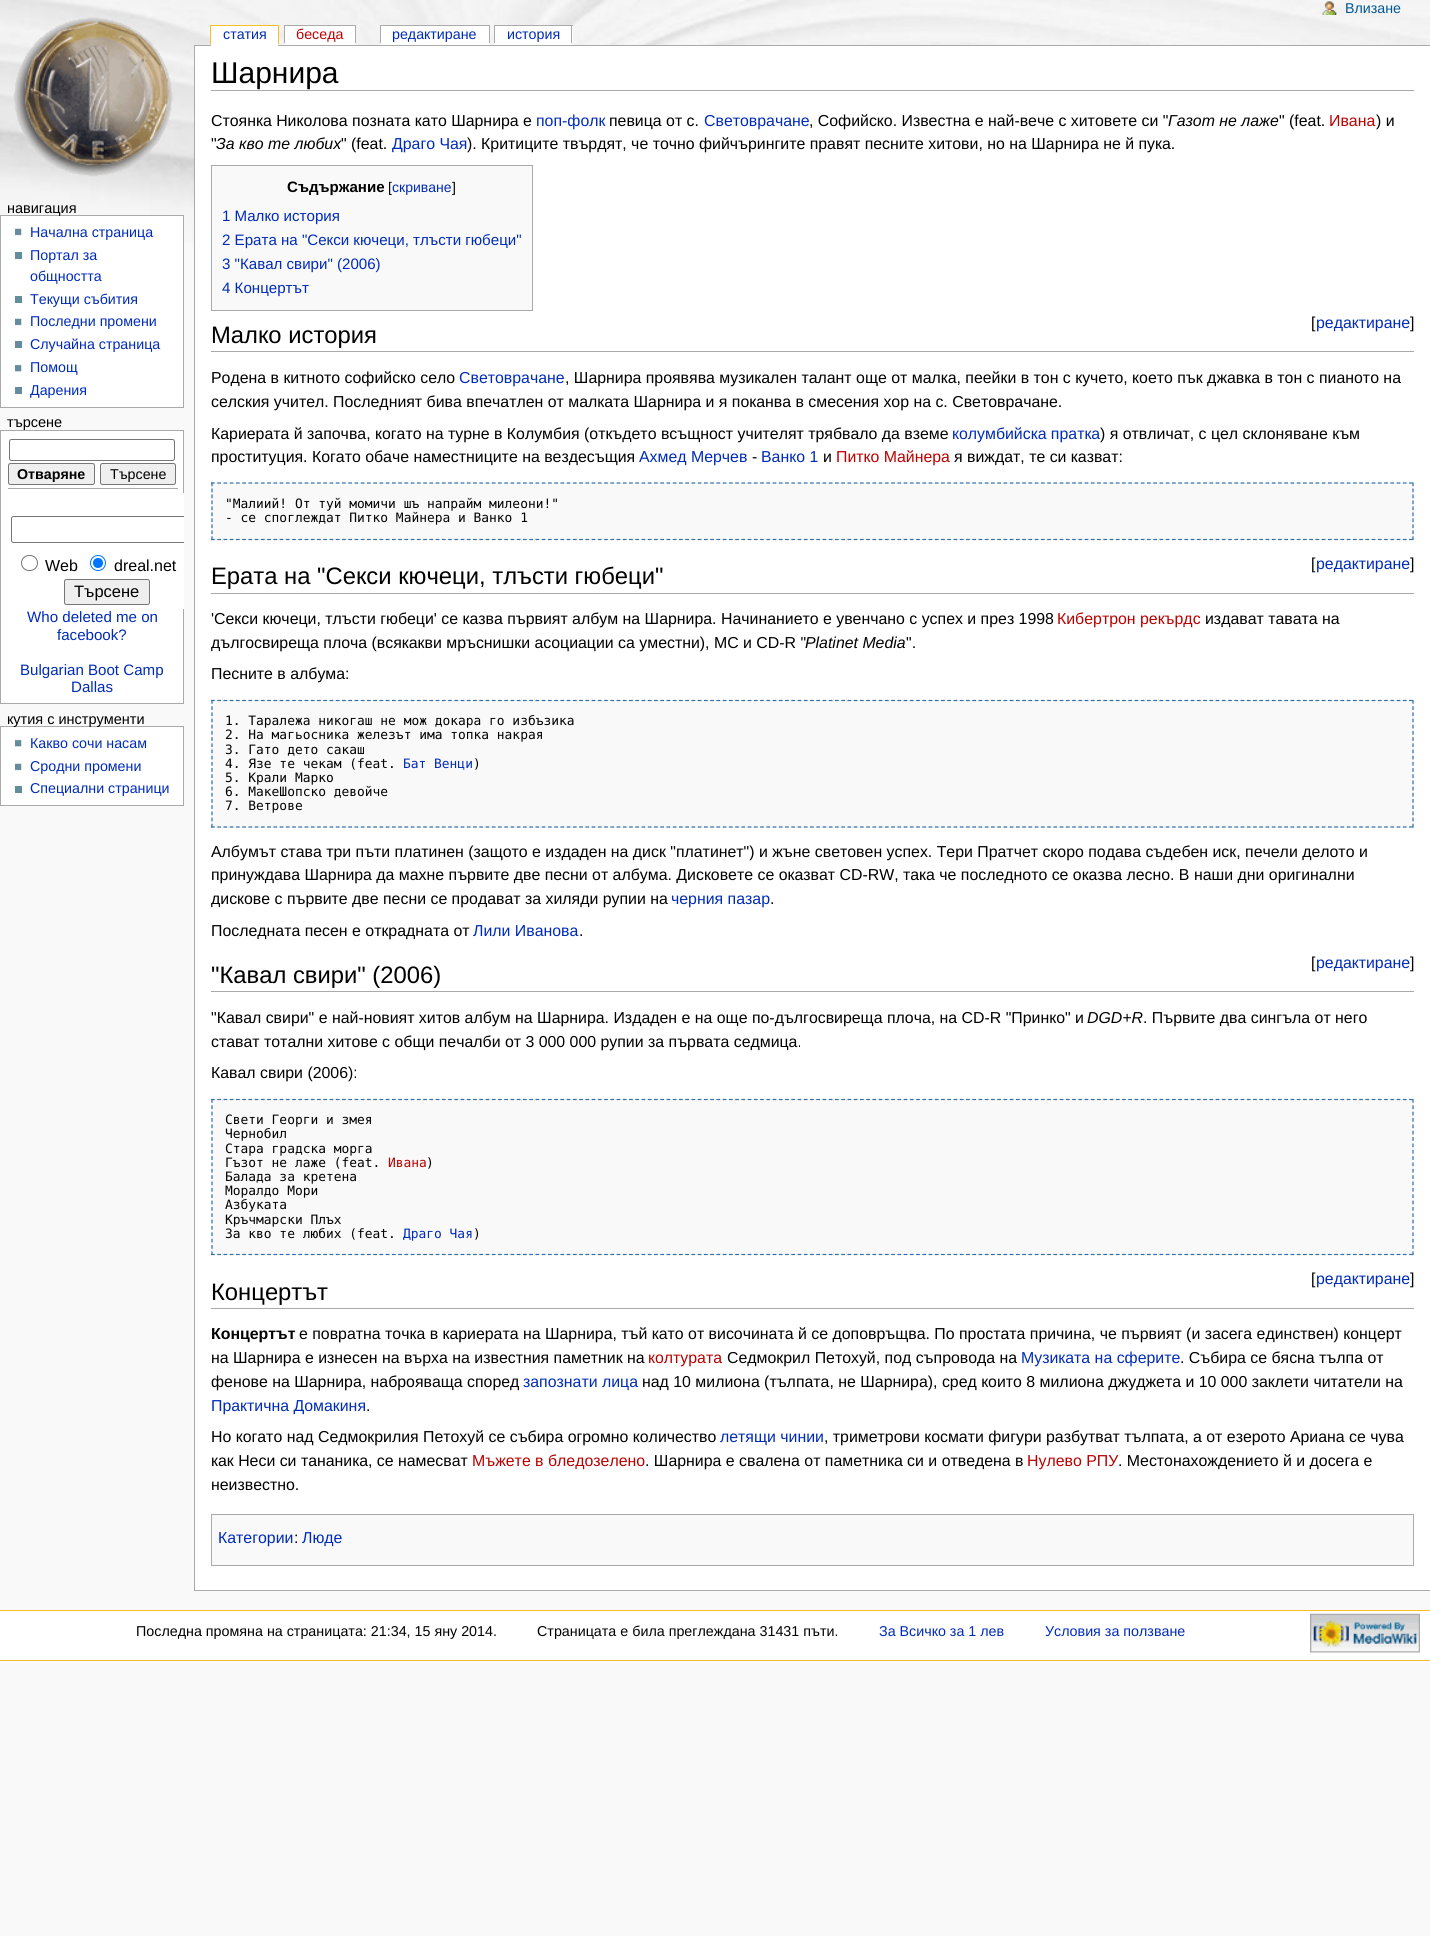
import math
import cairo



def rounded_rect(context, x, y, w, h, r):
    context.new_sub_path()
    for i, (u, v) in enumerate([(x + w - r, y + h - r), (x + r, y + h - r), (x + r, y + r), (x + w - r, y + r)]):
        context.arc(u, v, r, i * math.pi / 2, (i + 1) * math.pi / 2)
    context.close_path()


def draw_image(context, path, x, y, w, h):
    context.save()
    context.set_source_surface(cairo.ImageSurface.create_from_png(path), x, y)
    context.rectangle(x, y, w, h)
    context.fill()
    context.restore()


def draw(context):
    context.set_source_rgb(249 / 255, 249 / 255, 249 / 255)
    context.paint()
    draw_image(context, "images/1.png", 0, 0, 1430, 243)
    draw_image(context, "images/2.png", 1322, 1, 15, 14)
    draw_image(context, "images/3.png", 13, 17, 160, 160)
    context.set_source_rgb(250 / 255, 189 / 255, 35 / 255)
    context.rectangle(210, 25, 69, 1)
    context.fill()
    context.rectangle(278, 25, 1, 19)
    context.fill()
    context.rectangle(210, 25, 1, 19)
    context.fill()
    context.set_source_rgb(170 / 255, 170 / 255, 170 / 255)
    context.rectangle(194, 45, 1236, 1)
    context.fill()
    context.set_source_rgb(1, 1, 1)
    context.rectangle(211, 26, 67, 20)
    context.fill()
    context.set_source_rgb(170 / 255, 170 / 255, 170 / 255)
    context.rectangle(284, 25, 72, 1)
    context.fill()
    context.rectangle(355, 25, 1, 18)
    context.fill()
    context.rectangle(284, 25, 1, 18)
    context.fill()
    context.set_source_rgb(1, 1, 1)
    context.rectangle(285, 26, 70, 19)
    context.fill()
    context.set_source_rgb(170 / 255, 170 / 255, 170 / 255)
    context.rectangle(380, 25, 110, 1)
    context.fill()
    context.rectangle(489, 25, 1, 18)
    context.fill()
    context.rectangle(380, 25, 1, 18)
    context.fill()
    context.set_source_rgb(1, 1, 1)
    context.rectangle(381, 26, 108, 19)
    context.fill()
    context.rectangle(572, 26, 1, 17)
    context.fill()
    context.set_source_rgb(170 / 255, 170 / 255, 170 / 255)
    context.rectangle(494, 25, 79, 1)
    context.fill()
    context.rectangle(571, 25, 1, 18)
    context.fill()
    context.rectangle(494, 25, 1, 18)
    context.fill()
    context.set_source_rgb(1, 1, 1)
    context.rectangle(495, 26, 76, 19)
    context.fill()
    context.rectangle(0.5, 215.5, 183, 192)
    context.fill_preserve()
    context.set_source_rgb(170 / 255, 170 / 255, 170 / 255)
    context.set_line_width(1)
    context.stroke()
    draw_image(context, "images/4.png", 15, 228, 7, 8)
    context.set_source_rgb(99 / 255, 140 / 255, 156 / 255)
    context.rectangle(15, 252, 7, 7)
    context.fill()
    context.rectangle(15, 296, 7, 7)
    context.fill()
    draw_image(context, "images/4.png", 15, 318, 7, 8)
    context.rectangle(15, 341, 7, 7)
    context.fill()
    draw_image(context, "images/5.png", 15, 364, 7, 8)
    context.rectangle(15, 387, 7, 7)
    context.fill()
    context.set_source_rgb(1, 1, 1)
    context.rectangle(0.5, 430.5, 183, 273)
    context.fill_preserve()
    context.set_source_rgb(170 / 255, 170 / 255, 170 / 255)
    context.stroke()
    rounded_rect(context, 9.5, 439.5, 165, 21, 2)
    context.set_source_rgb(118 / 255, 118 / 255, 118 / 255)
    context.stroke()
    context.set_source_rgb(239 / 255, 239 / 255, 239 / 255)
    rounded_rect(context, 8.5, 463.5, 86, 21, 2)
    context.fill_preserve()
    context.set_source_rgb(118 / 255, 118 / 255, 118 / 255)
    context.stroke()
    context.set_source_rgb(239 / 255, 239 / 255, 239 / 255)
    rounded_rect(context, 100.5, 463.5, 75, 21, 2)
    context.fill_preserve()
    context.set_source_rgb(118 / 255, 118 / 255, 118 / 255)
    context.stroke()
    context.set_source_rgb(170 / 255, 170 / 255, 170 / 255)
    context.rectangle(8, 488, 170, 1)
    context.fill()
    context.set_source_rgb(1, 1, 1)
    context.rectangle(183, 493, 1, 116)
    context.fill()
    context.rectangle(195, 46, 1235, 1544)
    context.fill()
    context.set_source_rgb(170 / 255, 170 / 255, 170 / 255)
    context.rectangle(194, 1590, 1236, 1)
    context.fill()
    context.rectangle(194, 45, 1, 1546)
    context.fill()
    context.save()
    context.rectangle(0, 415, 184, 289)
    context.clip()
    rounded_rect(context, 11.5, 516.5, 191, 26, 2)
    context.set_source_rgb(118 / 255, 118 / 255, 118 / 255)
    context.stroke()
    context.restore()
    rounded_rect(context, 21.5, 555.5, 16, 15, 7.5)
    context.set_source_rgb(118 / 255, 118 / 255, 118 / 255)
    context.stroke()
    context.arc(98, 563, 7.5, 0, 2 * math.pi)
    context.set_source_rgb(0, 117 / 255, 1)
    context.stroke()
    context.arc(98, 563, 5, 0, 2 * math.pi)
    context.fill()
    context.set_source_rgb(239 / 255, 239 / 255, 239 / 255)
    rounded_rect(context, 64.5, 579.5, 85, 25, 2)
    context.fill_preserve()
    context.set_source_rgb(118 / 255, 118 / 255, 118 / 255)
    context.stroke()
    context.set_source_rgb(1, 1, 1)
    context.rectangle(0.5, 726.5, 183, 79)
    context.fill_preserve()
    context.set_source_rgb(170 / 255, 170 / 255, 170 / 255)
    context.stroke()
    draw_image(context, "images/5.png", 15, 739, 7, 8)
    draw_image(context, "images/4.png", 15, 763, 7, 8)
    context.set_source_rgb(99 / 255, 140 / 255, 156 / 255)
    context.rectangle(15, 786, 7, 7)
    context.fill()
    context.set_source_rgb(170 / 255, 170 / 255, 170 / 255)
    context.rectangle(211, 90, 1203, 1)
    context.fill()
    context.set_source_rgb(249 / 255, 249 / 255, 249 / 255)
    context.rectangle(211.5, 165.5, 321, 145)
    context.fill_preserve()
    context.set_source_rgb(170 / 255, 170 / 255, 170 / 255)
    context.stroke()
    context.rectangle(211, 351, 1203, 1)
    context.fill()
    context.set_source_rgb(249 / 255, 249 / 255, 249 / 255)
    context.rectangle(211, 483, 1203, 57)
    context.fill()
    context.new_path()
    context.move_to(211, 483)
    context.line_to(1414, 483)
    context.set_source_rgb(47 / 255, 111 / 255, 171 / 255)
    context.set_line_width(1.2)
    context.set_dash([3.75, 2.49])
    context.stroke()
    context.new_path()
    context.move_to(1413, 482.5)
    context.line_to(1413, 540)
    context.set_dash([3.75, 2.23])
    context.stroke()
    context.new_path()
    context.move_to(211, 539.5)
    context.line_to(1414, 539.5)
    context.set_dash([3.75, 2.49])
    context.stroke()
    context.new_path()
    context.move_to(212, 482.5)
    context.line_to(212, 540)
    context.set_dash([3.75, 2.23])
    context.stroke()
    context.set_source_rgb(170 / 255, 170 / 255, 170 / 255)
    context.rectangle(211, 593, 1203, 1)
    context.fill()
    context.set_source_rgb(249 / 255, 249 / 255, 249 / 255)
    context.rectangle(211, 700, 1203, 128)
    context.fill()
    context.new_path()
    context.move_to(211, 700.5)
    context.line_to(1414, 700.5)
    context.set_source_rgb(47 / 255, 111 / 255, 171 / 255)
    context.set_dash([3.75, 2.49])
    context.stroke()
    context.new_path()
    context.move_to(1413, 700)
    context.line_to(1413, 827.5)
    context.set_dash([3.75, 2.44])
    context.stroke()
    context.new_path()
    context.move_to(211, 827)
    context.line_to(1414, 827)
    context.set_dash([3.75, 2.49])
    context.stroke()
    context.new_path()
    context.move_to(212, 700)
    context.line_to(212, 827.5)
    context.set_dash([3.75, 2.44])
    context.stroke()
    context.set_source_rgb(170 / 255, 170 / 255, 170 / 255)
    context.rectangle(211, 991, 1203, 1)
    context.fill()
    context.set_source_rgb(249 / 255, 249 / 255, 249 / 255)
    context.rectangle(211, 1099, 1203, 156)
    context.fill()
    context.new_path()
    context.move_to(211, 1099.5)
    context.line_to(1414, 1099.5)
    context.set_source_rgb(47 / 255, 111 / 255, 171 / 255)
    context.set_dash([3.75, 2.49])
    context.stroke()
    context.new_path()
    context.move_to(1413, 1099)
    context.line_to(1413, 1255)
    context.set_dash([3.75, 2.6])
    context.stroke()
    context.new_path()
    context.move_to(211, 1254.5)
    context.line_to(1414, 1254.5)
    context.set_dash([3.75, 2.49])
    context.stroke()
    context.new_path()
    context.move_to(212, 1099)
    context.line_to(212, 1255)
    context.set_dash([3.75, 2.6])
    context.stroke()
    context.set_source_rgb(170 / 255, 170 / 255, 170 / 255)
    context.rectangle(211, 1308, 1203, 1)
    context.fill()
    context.set_source_rgb(249 / 255, 249 / 255, 249 / 255)
    context.rectangle(211.5, 1514.5, 1202, 51)
    context.fill_preserve()
    context.set_source_rgb(170 / 255, 170 / 255, 170 / 255)
    context.set_line_width(1)
    context.set_dash([])
    context.stroke()
    context.set_source_rgb(1, 1, 1)
    context.rectangle(0, 1611, 1430, 49)
    context.fill()
    context.set_source_rgb(250 / 255, 189 / 255, 35 / 255)
    context.rectangle(0, 1610, 1430, 1)
    context.fill()
    context.rectangle(0, 1660, 1430, 1)
    context.fill()
    draw_image(context, "images/6.png", 1310, 1613, 110, 40)
    context.select_font_face("Liberation Sans")
    context.set_font_size(14.25)
    context.set_source_rgb(0, 88 / 255, 150 / 255)
    context.move_to(1345, 13)
    context.show_text("Влизане")
    context.set_source_rgb(0, 43 / 255, 184 / 255)
    context.move_to(223, 39)
    context.show_text("статия")
    context.set_source_rgb(186 / 255, 0, 0)
    context.move_to(296, 39)
    context.show_text("беседа")
    context.set_source_rgb(0, 43 / 255, 184 / 255)
    context.move_to(392, 39)
    context.show_text("редактиране")
    context.move_to(507, 39)
    context.show_text("история")
    context.set_font_size(14.5)
    context.set_source_rgb(0, 0, 0)
    context.move_to(7, 213)
    context.show_text("навигация")
    context.set_font_size(14.25)
    context.set_source_rgb(0, 43 / 255, 184 / 255)
    context.move_to(30, 237)
    context.show_text("Начална страница")
    context.move_to(30, 260)
    context.show_text("Портал за")
    context.move_to(30, 281)
    context.show_text("общността")
    context.move_to(30, 304)
    context.show_text("Текущи събития")
    context.move_to(30, 326)
    context.show_text("Последни промени")
    context.move_to(30, 349)
    context.show_text("Случайна страница")
    context.move_to(30, 372)
    context.show_text("Помощ")
    context.move_to(30, 395)
    context.show_text("Дарения")
    context.set_font_size(14.5)
    context.set_source_rgb(0, 0, 0)
    context.move_to(7, 427)
    context.show_text("търсене")
    context.select_font_face("Liberation Sans", cairo.FontSlant.NORMAL, cairo.FontWeight.BOLD)
    context.set_font_size(14.25)
    context.move_to(17, 479)
    context.show_text("Отваряне")
    context.select_font_face("Liberation Sans")
    context.move_to(110, 479)
    context.show_text("Търсене")
    context.set_font_size(16)
    context.move_to(45, 571)
    context.show_text("Web")
    context.move_to(114, 571)
    context.show_text("dreal.net")
    context.set_font_size(16.5)
    context.move_to(74, 597)
    context.show_text("Търсене")
    context.set_font_size(15.1)
    context.set_source_rgb(0, 43 / 255, 184 / 255)
    context.move_to(27, 622)
    context.show_text("Who deleted me on")
    context.move_to(57, 640)
    context.show_text("facebook?")
    context.move_to(20, 675)
    context.show_text("Bulgarian Boot Camp")
    context.move_to(71, 692)
    context.show_text("Dallas")
    context.set_font_size(14.5)
    context.set_source_rgb(0, 0, 0)
    context.move_to(7, 724)
    context.show_text("кутия с инструменти")
    context.set_font_size(14.25)
    context.set_source_rgb(0, 43 / 255, 184 / 255)
    context.move_to(30, 748)
    context.show_text("Какво сочи насам")
    context.move_to(30, 771)
    context.show_text("Сродни промени")
    context.move_to(30, 793)
    context.show_text("Специални страници")
    context.set_font_size(30)
    context.set_source_rgb(0, 0, 0)
    context.move_to(211, 83)
    context.show_text("Шарнира")
    context.set_font_size(15.88)
    context.move_to(211, 126)
    context.show_text("Стоянка Николова позната като Шарнира е")
    context.set_source_rgb(0, 43 / 255, 184 / 255)
    context.move_to(536, 126)
    context.show_text("поп-фолк")
    context.set_source_rgb(0, 0, 0)
    context.move_to(609, 126)
    context.show_text("певица от с.")
    context.set_source_rgb(0, 43 / 255, 184 / 255)
    context.move_to(704, 126)
    context.show_text("Световрачане")
    context.set_source_rgb(0, 0, 0)
    context.move_to(809, 126)
    context.show_text(", Софийско. Известна е най-вече с хитовете си \"")
    context.select_font_face("Liberation Sans", cairo.FontSlant.ITALIC)
    context.move_to(1168, 126)
    context.show_text("Газот не лаже")
    context.select_font_face("Liberation Sans")
    context.move_to(1279, 126)
    context.show_text("\" (feat.")
    context.set_source_rgb(186 / 255, 0, 0)
    context.move_to(1329, 126)
    context.show_text("Ивана")
    context.set_source_rgb(0, 0, 0)
    context.move_to(1376, 126)
    context.show_text(") и")
    context.move_to(211, 149)
    context.show_text("\"")
    context.select_font_face("Liberation Sans", cairo.FontSlant.ITALIC)
    context.move_to(216, 149)
    context.show_text("За кво те любих")
    context.select_font_face("Liberation Sans")
    context.move_to(341, 149)
    context.show_text("\" (feat.")
    context.set_source_rgb(0, 43 / 255, 184 / 255)
    context.move_to(392, 149)
    context.show_text("Драго Чая")
    context.set_source_rgb(0, 0, 0)
    context.move_to(467, 149)
    context.show_text("). Критиците твърдят, че точно фийчърингите правят песните хитови, но на Шарнира не й пука.")
    context.select_font_face("Liberation Sans", cairo.FontSlant.NORMAL, cairo.FontWeight.BOLD)
    context.set_font_size(15.1)
    context.move_to(287, 192)
    context.show_text("Съдържание")
    context.select_font_face("Liberation Sans")
    context.set_font_size(14)
    context.move_to(388, 192)
    context.show_text("[")
    context.set_source_rgb(0, 43 / 255, 184 / 255)
    context.move_to(392, 192)
    context.show_text("скриване")
    context.set_source_rgb(0, 0, 0)
    context.move_to(452, 192)
    context.show_text("]")
    context.set_font_size(15.1)
    context.set_source_rgb(0, 43 / 255, 184 / 255)
    context.move_to(222, 221)
    context.show_text("1 Малко история")
    context.move_to(222, 245)
    context.show_text("2 Ерата на \"Секси кючеци, тлъсти гюбеци\"")
    context.move_to(222, 269)
    context.show_text("3 \"Кавал свири\" (2006)")
    context.move_to(222, 293)
    context.show_text("4 Концертът")
    context.set_font_size(15.88)
    context.set_source_rgb(0, 0, 0)
    context.move_to(1311, 328)
    context.show_text("[")
    context.set_source_rgb(0, 43 / 255, 184 / 255)
    context.move_to(1316, 328)
    context.show_text("редактиране")
    context.set_source_rgb(0, 0, 0)
    context.move_to(1410, 328)
    context.show_text("]")
    context.set_font_size(23.8)
    context.move_to(211, 343)
    context.show_text("Малко история")
    context.set_font_size(15.88)
    context.move_to(211, 383)
    context.show_text("Родена в китното софийско село")
    context.set_source_rgb(0, 43 / 255, 184 / 255)
    context.move_to(459, 383)
    context.show_text("Световрачане")
    context.set_source_rgb(0, 0, 0)
    context.move_to(565, 383)
    context.show_text(", Шарнира проявява музикален талант още от малка, пеейки в тон с кучето, което пък джавка в тон с пианото на")
    context.move_to(211, 407)
    context.show_text("селския учител. Последният бива впечатлен от малката Шарнира и я поканва в смесения хор на с. Световрачане.")
    context.move_to(211, 439)
    context.show_text("Кариерата й започва, когато на турне в Колумбия (откъдето всъщност учителят трябвало да вземе")
    context.set_source_rgb(0, 43 / 255, 184 / 255)
    context.move_to(952, 439)
    context.show_text("колумбийска пратка")
    context.set_source_rgb(0, 0, 0)
    context.move_to(1100, 439)
    context.show_text(") я отвличат, с цел склоняване към")
    context.move_to(211, 462)
    context.show_text("проституция. Когато обаче наместниците на вездесъщия")
    context.set_source_rgb(0, 43 / 255, 184 / 255)
    context.move_to(639, 462)
    context.show_text("Ахмед Мерчев")
    context.set_source_rgb(0, 0, 0)
    context.move_to(752, 462)
    context.show_text("-")
    context.set_source_rgb(0, 43 / 255, 184 / 255)
    context.move_to(761, 462)
    context.show_text("Ванко 1")
    context.set_source_rgb(0, 0, 0)
    context.move_to(823, 462)
    context.show_text("и")
    context.set_source_rgb(186 / 255, 0, 0)
    context.move_to(836, 462)
    context.show_text("Питко Майнера")
    context.set_source_rgb(0, 0, 0)
    context.move_to(954, 462)
    context.show_text("я виждат, те си казват:")
    context.select_font_face("DejaVu Sans Mono")
    context.set_font_size(12.9)
    context.move_to(225, 508)
    context.show_text("\"Малиий! От туй момичи шъ напрайм милеони!\"")
    context.move_to(225, 522)
    context.show_text("- се споглеждат Питко Майнера и Ванко 1")
    context.select_font_face("Liberation Sans")
    context.set_font_size(23.8)
    context.move_to(211, 584)
    context.show_text("Ерата на \"Секси кючеци, тлъсти гюбеци\"")
    context.set_font_size(15.88)
    context.move_to(1311, 569)
    context.show_text("[")
    context.set_source_rgb(0, 43 / 255, 184 / 255)
    context.move_to(1316, 569)
    context.show_text("редактиране")
    context.set_source_rgb(0, 0, 0)
    context.move_to(1410, 569)
    context.show_text("]")
    context.move_to(211, 624)
    context.show_text("'Секси кючеци, тлъсти гюбеци' се казва първият албум на Шарнира. Начинанието е увенчано с успех и през 1998")
    context.set_source_rgb(186 / 255, 0, 0)
    context.move_to(1057, 624)
    context.show_text("Кибертрон рекърдс")
    context.set_source_rgb(0, 0, 0)
    context.move_to(1205, 624)
    context.show_text("издават тавата на")
    context.move_to(211, 648)
    context.show_text("дългосвиреща плоча (всякакви мръснишки асоциации са уместни), MC и CD-R \"")
    context.select_font_face("Liberation Sans", cairo.FontSlant.ITALIC)
    context.move_to(805, 648)
    context.show_text("Platinet Media")
    context.select_font_face("Liberation Sans")
    context.move_to(906, 648)
    context.show_text("\".")
    context.move_to(211, 679)
    context.show_text("Песните в албума:")
    context.select_font_face("DejaVu Sans Mono")
    context.set_font_size(12.9)
    context.move_to(225, 725)
    context.show_text("1. Таралежа никогаш не мож докара го избъзика")
    context.move_to(225, 739)
    context.show_text("2. На магьосника железът има топка накрая")
    context.move_to(225, 754)
    context.show_text("3. Гато дето сакаш")
    context.move_to(225, 768)
    context.show_text("4. Язе те чекам (feat.")
    context.set_source_rgb(0, 43 / 255, 184 / 255)
    context.move_to(403, 768)
    context.show_text("Бат Венци")
    context.set_source_rgb(0, 0, 0)
    context.move_to(473, 768)
    context.show_text(")")
    context.move_to(225, 782)
    context.show_text("5. Крали Марко")
    context.move_to(225, 796)
    context.show_text("6. МакеШопско девойче")
    context.move_to(225, 810)
    context.show_text("7. Ветрове")
    context.select_font_face("Liberation Sans")
    context.set_font_size(15.88)
    context.move_to(211, 857)
    context.show_text("Албумът става три пъти платинен (защото е издаден на диск \"платинет\") и жъне световен успех. Тери Пратчет скоро подава съдебен иск, печели делото и")
    context.move_to(211, 880)
    context.show_text("принуждава Шарнира да махне първите две песни от албума. Дисковете се оказват CD-RW, така че последното се оказва лесно. В наши дни оригинални")
    context.move_to(211, 904)
    context.show_text("дискове с първите две песни се продават за хиляди рупии на")
    context.set_source_rgb(0, 43 / 255, 184 / 255)
    context.move_to(671, 904)
    context.show_text("черния пазар")
    context.set_source_rgb(0, 0, 0)
    context.move_to(770, 904)
    context.show_text(".")
    context.move_to(211, 936)
    context.show_text("Последната песен е открадната от")
    context.set_source_rgb(0, 43 / 255, 184 / 255)
    context.move_to(473, 936)
    context.show_text("Лили Иванова")
    context.set_source_rgb(0, 0, 0)
    context.move_to(579, 936)
    context.show_text(".")
    context.set_font_size(23.8)
    context.move_to(211, 983)
    context.show_text("\"Кавал свири\" (2006)")
    context.set_font_size(15.88)
    context.move_to(1311, 968)
    context.show_text("[")
    context.set_source_rgb(0, 43 / 255, 184 / 255)
    context.move_to(1316, 968)
    context.show_text("редактиране")
    context.set_source_rgb(0, 0, 0)
    context.move_to(1410, 968)
    context.show_text("]")
    context.move_to(211, 1023)
    context.show_text("\"Кавал свири\" е най-новият хитов албум на Шарнира. Издаден е на още по-дългосвиреща плоча, на CD-R \"Принко\" и")
    context.select_font_face("Liberation Sans", cairo.FontSlant.ITALIC)
    context.move_to(1087, 1023)
    context.show_text("DGD+R")
    context.select_font_face("Liberation Sans")
    context.move_to(1143, 1023)
    context.show_text(". Първите два сингъла от него")
    context.move_to(211, 1047)
    context.show_text("стават тотални хитове с общи печалби от 3 000 000 рупии за първата седмица.")
    context.move_to(211, 1078)
    context.show_text("Кавал свири (2006):")
    context.select_font_face("DejaVu Sans Mono")
    context.set_font_size(12.9)
    context.move_to(225, 1124)
    context.show_text("Свети Георги и змея")
    context.move_to(225, 1138)
    context.show_text("Чернобил")
    context.move_to(225, 1153)
    context.show_text("Стара градска морга")
    context.move_to(225, 1167)
    context.show_text("Гъзот не лаже (feat.")
    context.set_source_rgb(186 / 255, 0, 0)
    context.move_to(388, 1167)
    context.show_text("Ивана")
    context.set_source_rgb(0, 0, 0)
    context.move_to(426, 1167)
    context.show_text(")")
    context.move_to(225, 1181)
    context.show_text("Балада за кретена")
    context.move_to(225, 1195)
    context.show_text("Моралдо Мори")
    context.move_to(225, 1209)
    context.show_text("Азбуката")
    context.move_to(225, 1224)
    context.show_text("Кръчмарски Плъх")
    context.move_to(225, 1238)
    context.show_text("За кво те любих (feat.")
    context.set_source_rgb(0, 43 / 255, 184 / 255)
    context.move_to(403, 1238)
    context.show_text("Драго Чая")
    context.set_source_rgb(0, 0, 0)
    context.move_to(473, 1238)
    context.show_text(")")
    context.select_font_face("Liberation Sans")
    context.set_font_size(15.88)
    context.move_to(1311, 1284)
    context.show_text("[")
    context.set_source_rgb(0, 43 / 255, 184 / 255)
    context.move_to(1316, 1284)
    context.show_text("редактиране")
    context.set_source_rgb(0, 0, 0)
    context.move_to(1410, 1284)
    context.show_text("]")
    context.set_font_size(23.8)
    context.move_to(211, 1300)
    context.show_text("Концертът")
    context.select_font_face("Liberation Sans", cairo.FontSlant.NORMAL, cairo.FontWeight.BOLD)
    context.set_font_size(15.88)
    context.move_to(211, 1339)
    context.show_text("Концертът")
    context.select_font_face("Liberation Sans")
    context.move_to(299, 1339)
    context.show_text("е повратна точка в кариерата на Шарнира, тъй като от височината й се доповръщва. По простата причина, че първият (и засега единствен) концерт")
    context.move_to(211, 1363)
    context.show_text("на Шарнира е изнесен на върха на известния паметник на")
    context.set_source_rgb(186 / 255, 0, 0)
    context.move_to(648, 1363)
    context.show_text("колтурата")
    context.set_source_rgb(0, 0, 0)
    context.move_to(727, 1363)
    context.show_text("Седмокрил Петохуй, под съпровода на")
    context.set_source_rgb(0, 43 / 255, 184 / 255)
    context.move_to(1021, 1363)
    context.show_text("Музиката на сферите")
    context.set_source_rgb(0, 0, 0)
    context.move_to(1180, 1363)
    context.show_text(". Събира се бясна тълпа от")
    context.move_to(211, 1387)
    context.show_text("фенове на Шарнира, наброяваща според")
    context.set_source_rgb(0, 43 / 255, 184 / 255)
    context.move_to(523, 1387)
    context.show_text("запознати лица")
    context.set_source_rgb(0, 0, 0)
    context.move_to(642, 1387)
    context.show_text("над 10 милиона (тълпата, не Шарнира), сред които 8 милиона джуджета и 10 000 заклети читатели на")
    context.set_source_rgb(0, 43 / 255, 184 / 255)
    context.move_to(211, 1411)
    context.show_text("Практична Домакиня")
    context.set_source_rgb(0, 0, 0)
    context.move_to(366, 1411)
    context.show_text(".")
    context.move_to(211, 1442)
    context.show_text("Но когато над Седмокрилия Петохуй се събира огромно количество")
    context.set_source_rgb(0, 43 / 255, 184 / 255)
    context.move_to(720, 1442)
    context.show_text("летящи чинии")
    context.set_source_rgb(0, 0, 0)
    context.move_to(824, 1442)
    context.show_text(", триметрови космати фигури разбутват тълпата, а от езерото Ариана се чува")
    context.move_to(211, 1466)
    context.show_text("как Неси си тананика, се намесват")
    context.set_source_rgb(186 / 255, 0, 0)
    context.move_to(472, 1466)
    context.show_text("Мъжете в бледозелено")
    context.set_source_rgb(0, 0, 0)
    context.move_to(645, 1466)
    context.show_text(". Шарнира е свалена от паметника си и отведена в")
    context.set_source_rgb(186 / 255, 0, 0)
    context.move_to(1027, 1466)
    context.show_text("Нулево РПУ")
    context.set_source_rgb(0, 0, 0)
    context.move_to(1118, 1466)
    context.show_text(". Местонахождението й и досега е")
    context.move_to(211, 1490)
    context.show_text("неизвестно.")
    context.set_source_rgb(0, 43 / 255, 184 / 255)
    context.move_to(218, 1543)
    context.show_text("Категории")
    context.set_source_rgb(0, 0, 0)
    context.move_to(294, 1543)
    context.show_text(":")
    context.set_source_rgb(0, 43 / 255, 184 / 255)
    context.move_to(302, 1543)
    context.show_text("Люде")
    context.set_font_size(14.3)
    context.set_source_rgb(0, 0, 0)
    context.move_to(136, 1636)
    context.show_text("Последна промяна на страницата: 21:34, 15 яну 2014.")
    context.move_to(537, 1636)
    context.show_text("Страницата е била преглеждана 31431 пъти.")
    context.set_source_rgb(0, 43 / 255, 184 / 255)
    context.move_to(879, 1636)
    context.show_text("За Всичко за 1 лев")
    context.move_to(1045, 1636)
    context.show_text("Условия за ползване")


surface = cairo.ImageSurface(cairo.Format.RGB24, 1430, 1936)
context = cairo.Context(surface)
options = cairo.FontOptions()
options.set_hint_metrics(cairo.HintMetrics.OFF)
options.set_hint_style(cairo.HintStyle.NONE)
context.set_font_options(options)
context.set_miter_limit(4)
draw(context)
surface.write_to_png("out.png")
